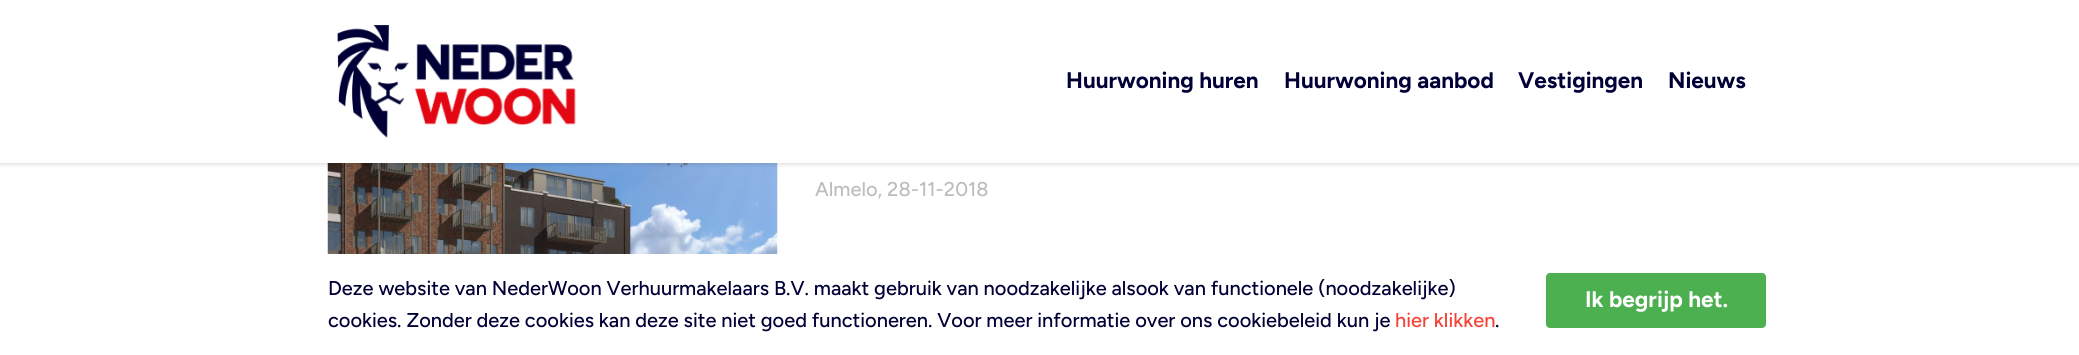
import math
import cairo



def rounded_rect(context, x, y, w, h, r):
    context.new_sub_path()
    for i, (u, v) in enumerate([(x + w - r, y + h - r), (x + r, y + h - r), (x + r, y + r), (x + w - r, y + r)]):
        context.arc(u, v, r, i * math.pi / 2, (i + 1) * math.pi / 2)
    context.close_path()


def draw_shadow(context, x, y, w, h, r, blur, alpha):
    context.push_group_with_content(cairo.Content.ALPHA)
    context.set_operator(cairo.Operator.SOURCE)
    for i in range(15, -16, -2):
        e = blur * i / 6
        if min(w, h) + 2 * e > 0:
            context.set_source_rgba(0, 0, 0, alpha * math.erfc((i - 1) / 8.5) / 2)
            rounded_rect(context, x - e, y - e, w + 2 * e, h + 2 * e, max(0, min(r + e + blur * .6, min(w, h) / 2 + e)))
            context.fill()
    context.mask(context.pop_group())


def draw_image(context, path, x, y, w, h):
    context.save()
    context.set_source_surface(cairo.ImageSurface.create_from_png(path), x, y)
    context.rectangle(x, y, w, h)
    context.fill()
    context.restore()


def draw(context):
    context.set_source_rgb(1, 1, 1)
    context.paint()
    draw_image(context, "images/2.png", 327, 163, 451, 91)
    context.set_source_rgb(0, 0, 0)
    draw_shadow(context, 0, 1, 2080, 163, 0, 2.5, 0.15)
    context.set_source_rgb(1, 1, 1)
    context.rectangle(0, 0, 2079, 163)
    context.fill()
    draw_image(context, "images/1.png", 337, 25, 239, 113)
    context.set_source_rgb(76 / 255, 175 / 255, 80 / 255)
    rounded_rect(context, 1546, 273, 220, 55, 4)
    context.fill()
    context.select_font_face("Figtree", cairo.FontSlant.NORMAL, cairo.FontWeight.BOLD)
    context.set_font_size(22.5)
    context.set_source_rgb(0, 0, 55 / 255)
    context.move_to(1066, 88)
    context.show_text("Huurwoning huren")
    context.move_to(1284, 88)
    context.show_text("Huurwoning aanbod")
    context.move_to(1518, 88)
    context.show_text("Vestigingen")
    context.move_to(1668, 88)
    context.show_text("Nieuws")
    context.select_font_face("Figtree Medium")
    context.set_font_size(20)
    context.set_source_rgb(189 / 255, 189 / 255, 189 / 255)
    context.move_to(815, 196)
    context.show_text("Almelo, 28-11-2018")
    context.set_source_rgb(0, 0, 55 / 255)
    context.move_to(328, 295)
    context.show_text("Deze website van NederWoon Verhuurmakelaars B.V. maakt gebruik van noodzakelijke alsook van functionele (noodzakelijke)")
    context.move_to(328, 327)
    context.show_text("cookies. Zonder deze cookies kan deze site niet goed functioneren. Voor meer informatie over ons cookiebeleid kun je")
    context.set_source_rgb(244 / 255, 67 / 255, 54 / 255)
    context.move_to(1395, 327)
    context.show_text("hier klikken")
    context.set_source_rgb(0, 0, 55 / 255)
    context.move_to(1495, 327)
    context.show_text(".")
    context.select_font_face("Figtree", cairo.FontSlant.NORMAL, cairo.FontWeight.BOLD)
    context.set_font_size(22.5)
    context.set_source_rgb(1, 1, 1)
    context.move_to(1585, 307)
    context.show_text("Ik begrijp het.")


surface = cairo.ImageSurface(cairo.Format.RGB24, 2079, 355)
context = cairo.Context(surface)
options = cairo.FontOptions()
options.set_hint_metrics(cairo.HintMetrics.OFF)
options.set_hint_style(cairo.HintStyle.NONE)
context.set_font_options(options)
context.set_miter_limit(4)
draw(context)
surface.write_to_png("out.png")
